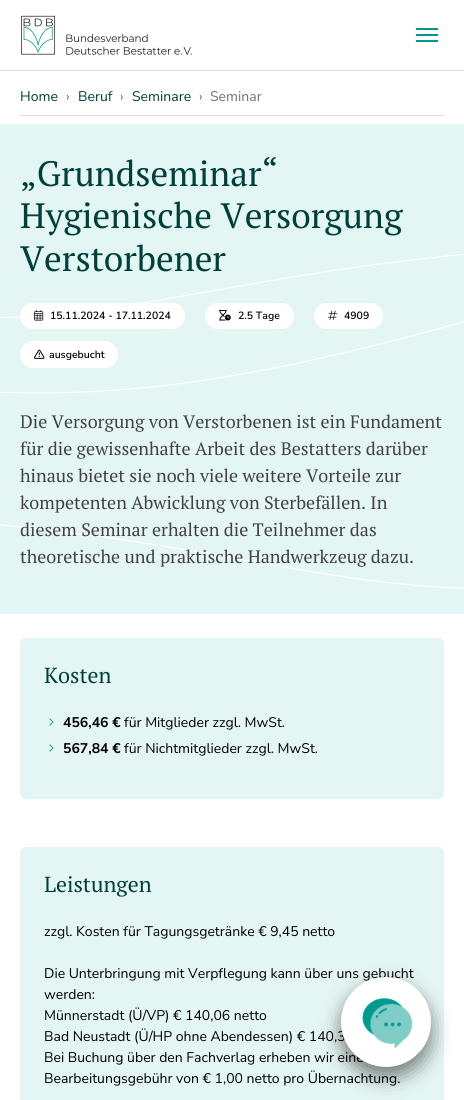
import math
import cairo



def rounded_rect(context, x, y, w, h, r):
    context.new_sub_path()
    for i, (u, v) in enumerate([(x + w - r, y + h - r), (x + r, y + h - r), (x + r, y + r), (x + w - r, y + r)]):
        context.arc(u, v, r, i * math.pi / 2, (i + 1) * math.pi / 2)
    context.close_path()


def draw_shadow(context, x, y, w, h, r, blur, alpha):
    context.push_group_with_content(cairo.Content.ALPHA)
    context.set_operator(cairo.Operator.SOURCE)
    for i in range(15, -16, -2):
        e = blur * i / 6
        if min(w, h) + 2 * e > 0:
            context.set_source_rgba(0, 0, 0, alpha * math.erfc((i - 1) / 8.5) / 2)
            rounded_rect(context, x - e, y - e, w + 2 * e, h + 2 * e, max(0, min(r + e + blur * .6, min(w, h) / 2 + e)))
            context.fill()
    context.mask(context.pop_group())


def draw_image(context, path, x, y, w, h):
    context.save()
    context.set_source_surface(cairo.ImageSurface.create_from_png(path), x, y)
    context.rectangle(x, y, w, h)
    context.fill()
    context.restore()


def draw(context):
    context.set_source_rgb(1, 1, 1)
    context.paint()
    context.set_source_rgb(217 / 255, 217 / 255, 217 / 255)
    context.rectangle(0, 70, 464, 1)
    context.fill()
    draw_image(context, "images/1.png", 21, 15, 171, 40)
    context.set_source_rgb(0, 154 / 255, 143 / 255)
    context.rectangle(416, 34, 22, 2)
    context.fill()
    context.rectangle(416, 28, 22, 2)
    context.fill()
    context.rectangle(416, 40, 22, 2)
    context.fill()
    context.set_source_rgb(222 / 255, 222 / 255, 222 / 255)
    context.rectangle(20, 115, 424, 1)
    context.fill()
    context.set_source_rgb(228 / 255, 246 / 255, 243 / 255)
    context.rectangle(0, 124, 464, 490)
    context.fill()
    draw_image(context, "images/2.png", 0, 253, 464, 336)
    context.set_source_rgb(1, 1, 1)
    rounded_rect(context, 20, 303, 165, 26, 13)
    context.fill()
    draw_image(context, "images/3.png", 34, 310, 10, 11)
    rounded_rect(context, 205, 303, 89, 26, 13)
    context.fill()
    draw_image(context, "images/4.png", 219, 310, 12, 11)
    rounded_rect(context, 314, 303, 69, 26, 13)
    context.fill()
    draw_image(context, "images/5.png", 328, 310, 10, 10)
    rounded_rect(context, 20, 341, 98, 27, 13.5)
    context.fill()
    draw_image(context, "images/6.png", 34, 349, 11, 10)
    context.set_source_rgb(228 / 255, 246 / 255, 243 / 255)
    rounded_rect(context, 20, 638, 424, 161, 6)
    context.fill()
    draw_image(context, "images/7.png", 49, 718, 5, 8)
    draw_image(context, "images/7.png", 49, 744, 5, 8)
    rounded_rect(context, 20, 847, 424, 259, 6)
    context.fill()
    context.set_source_rgb(0, 0, 0)
    draw_shadow(context, 341, 987, 90, 90, 45, 10, 0.5)
    context.select_font_face("Nunito Sans ExtraLight")
    context.set_font_size(14)
    context.set_source_rgb(0, 64 / 255, 59 / 255)
    context.move_to(20, 101)
    context.show_text("Home")
    context.set_source_rgb(113 / 255, 113 / 255, 113 / 255)
    context.move_to(66, 101)
    context.show_text("›")
    context.set_source_rgb(0, 64 / 255, 59 / 255)
    context.move_to(78, 101)
    context.show_text("Beruf")
    context.set_source_rgb(113 / 255, 113 / 255, 113 / 255)
    context.move_to(120, 101)
    context.show_text("›")
    context.set_source_rgb(0, 64 / 255, 59 / 255)
    context.move_to(132, 101)
    context.show_text("Seminare")
    context.set_source_rgb(113 / 255, 113 / 255, 113 / 255)
    context.move_to(199, 101)
    context.show_text("›")
    context.move_to(210, 101)
    context.show_text("Seminar")
    context.select_font_face("PT Serif")
    context.set_font_size(35.25)
    context.set_source_rgb(0, 64 / 255, 59 / 255)
    context.move_to(20, 186)
    context.show_text("„Grundseminar“")
    context.move_to(20, 228)
    context.show_text("Hygienische Versorgung")
    context.move_to(20, 271)
    context.show_text("Verstorbener")
    context.select_font_face("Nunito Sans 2 ExtraLight")
    context.set_font_size(10.5)
    context.set_source_rgb(0, 0, 0)
    context.move_to(50, 319)
    context.show_text("15.11.2024 - 17.11.2024")
    context.move_to(238, 319)
    context.show_text("2.5 Tage")
    context.move_to(344, 319)
    context.show_text("4909")
    context.move_to(49, 358)
    context.show_text("ausgebucht")
    context.select_font_face("PT Serif")
    context.set_font_size(18)
    context.set_source_rgb(66 / 255, 66 / 255, 66 / 255)
    context.move_to(20, 428)
    context.show_text("Die Versorgung von Verstorbenen ist ein Fundament")
    context.move_to(20, 455)
    context.show_text("für die gewissenhafte Arbeit des Bestatters darüber")
    context.move_to(20, 482)
    context.show_text("hinaus bietet sie noch viele weitere Vorteile zur")
    context.move_to(20, 509)
    context.show_text("kompetenten Abwicklung von Sterbefällen. In")
    context.move_to(20, 536)
    context.show_text("diesem Seminar erhalten die Teilnehmer das")
    context.move_to(20, 563)
    context.show_text("theoretische und praktische Handwerkzeug dazu.")
    context.set_font_size(21.75)
    context.set_source_rgb(0, 64 / 255, 59 / 255)
    context.move_to(44, 683)
    context.show_text("Kosten")
    context.select_font_face("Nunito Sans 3 ExtraLight")
    context.set_font_size(14)
    context.set_source_rgb(0, 0, 0)
    context.move_to(63, 727)
    context.show_text("456,46 €")
    context.select_font_face("Nunito Sans ExtraLight")
    context.move_to(124, 727)
    context.show_text("für Mitglieder zzgl. MwSt.")
    context.select_font_face("Nunito Sans 3 ExtraLight")
    context.move_to(63, 753)
    context.show_text("567,84 €")
    context.select_font_face("Nunito Sans ExtraLight")
    context.move_to(124, 753)
    context.show_text("für Nichtmitglieder zzgl. MwSt.")
    context.select_font_face("PT Serif")
    context.set_font_size(21.75)
    context.set_source_rgb(0, 64 / 255, 59 / 255)
    context.move_to(44, 892)
    context.show_text("Leistungen")
    context.select_font_face("Nunito Sans ExtraLight")
    context.set_font_size(14)
    context.set_source_rgb(0, 0, 0)
    context.move_to(44, 936)
    context.show_text("zzgl. Kosten für Tagungsgetränke € 9,45 netto")
    context.move_to(44, 978)
    context.show_text("Die Unterbringung mit Verpflegung kann über uns gebucht")
    context.move_to(44, 999)
    context.show_text("werden:")
    context.move_to(44, 1020)
    context.show_text("Münnerstadt (Ü/VP) € 140,06 netto")
    context.move_to(44, 1041)
    context.show_text("Bad Neustadt (Ü/HP ohne Abendessen) € 140,3")
    context.move_to(44, 1062)
    context.show_text("Bei Buchung über den Fachverlag erheben wir eine")
    context.move_to(44, 1083)
    context.show_text("Bearbeitungsgebühr von € 1,00 netto pro Übernachtung.")
    context.set_source_rgb(1, 1, 1)
    context.new_path()
    context.arc(386, 1022, 45, 0, 2 * math.pi)
    context.fill()
    draw_image(context, "images/8.png", 362, 998, 51, 51)


surface = cairo.ImageSurface(cairo.Format.RGB24, 464, 1100)
context = cairo.Context(surface)
options = cairo.FontOptions()
options.set_hint_metrics(cairo.HintMetrics.OFF)
options.set_hint_style(cairo.HintStyle.NONE)
context.set_font_options(options)
context.set_miter_limit(4)
draw(context)
surface.write_to_png("out.png")
